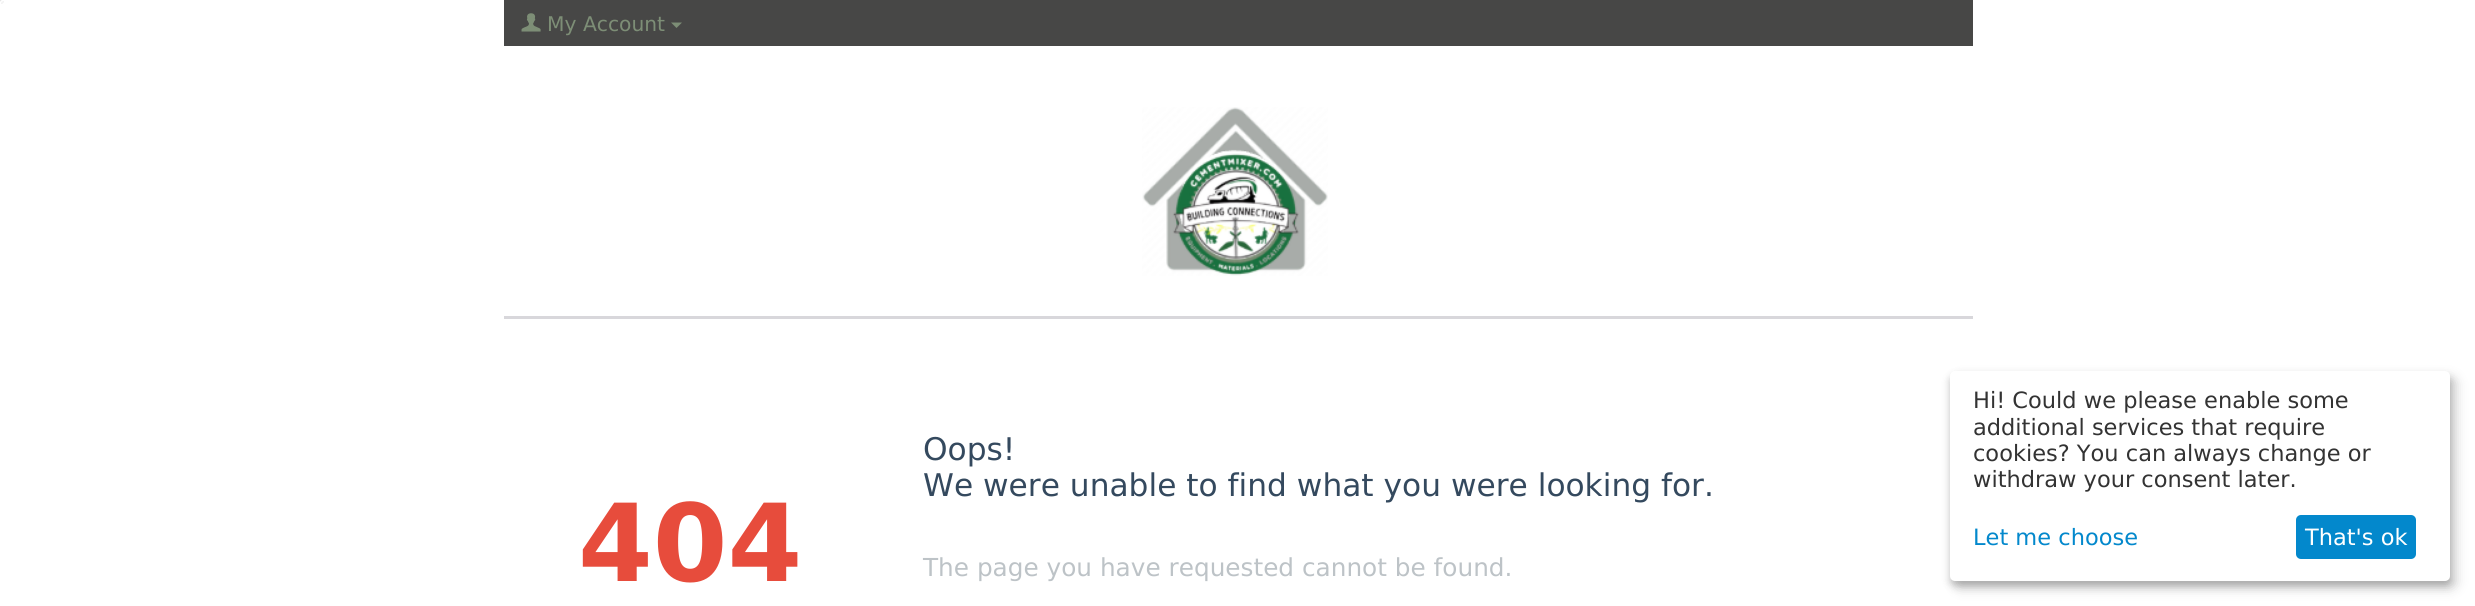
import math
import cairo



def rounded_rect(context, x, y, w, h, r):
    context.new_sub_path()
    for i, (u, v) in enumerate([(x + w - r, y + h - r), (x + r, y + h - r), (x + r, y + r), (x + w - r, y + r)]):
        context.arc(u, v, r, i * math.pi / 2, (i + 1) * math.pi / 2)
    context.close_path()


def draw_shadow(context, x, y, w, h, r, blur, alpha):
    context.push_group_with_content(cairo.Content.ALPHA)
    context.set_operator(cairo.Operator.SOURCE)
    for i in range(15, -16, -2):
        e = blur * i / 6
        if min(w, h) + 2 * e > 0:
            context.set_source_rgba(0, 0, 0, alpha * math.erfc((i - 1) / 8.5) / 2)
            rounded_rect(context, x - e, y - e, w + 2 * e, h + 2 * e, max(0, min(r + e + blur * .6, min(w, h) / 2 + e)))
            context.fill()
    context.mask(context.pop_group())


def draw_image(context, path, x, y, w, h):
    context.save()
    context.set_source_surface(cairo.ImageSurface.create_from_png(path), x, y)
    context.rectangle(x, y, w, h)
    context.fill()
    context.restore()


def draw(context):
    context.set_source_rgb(1, 1, 1)
    context.paint()
    draw_image(context, "images/1.png", 0, 0, 4, 4)
    context.set_source_rgb(71 / 255, 71 / 255, 70 / 255)
    context.rectangle(504, 0, 1469, 46)
    context.fill()
    draw_image(context, "images/2.png", 521, 13, 20, 19)
    context.set_source_rgb(125 / 255, 142 / 255, 118 / 255)
    context.new_path()
    context.move_to(676.5, 28)
    context.line_to(671, 22.5)
    context.line_to(682, 22.5)
    context.close_path()
    context.fill()
    draw_image(context, "images/3.png", 1142, 107, 186, 169)
    context.set_source_rgb(216 / 255, 215 / 255, 219 / 255)
    context.rectangle(504, 316, 1469, 3)
    context.fill()
    context.set_source_rgb(0, 0, 0)
    draw_shadow(context, 1956, 378, 500, 210, 5, 6, 0.19)
    draw_shadow(context, 1950, 376, 500, 210, 5, 4, 0.2)
    context.set_source_rgb(1, 1, 1)
    rounded_rect(context, 1950, 371, 500, 210, 5)
    context.fill()
    context.set_source_rgb(3 / 255, 136 / 255, 204 / 255)
    rounded_rect(context, 2296, 515, 120, 44, 5)
    context.fill()
    context.select_font_face("DejaVu Sans")
    context.set_font_size(20.25)
    context.set_source_rgb(125 / 255, 142 / 255, 118 / 255)
    context.move_to(547, 31)
    context.show_text("My Account")
    context.select_font_face("DejaVu Sans", cairo.FontSlant.NORMAL, cairo.FontWeight.BOLD)
    context.set_font_size(107.5)
    context.set_source_rgb(231 / 255, 76 / 255, 60 / 255)
    context.move_to(578, 581)
    context.show_text("404")
    context.select_font_face("DejaVu Sans")
    context.set_font_size(31.25)
    context.set_source_rgb(52 / 255, 73 / 255, 94 / 255)
    context.move_to(923, 460)
    context.show_text("Oops!")
    context.move_to(923, 496)
    context.show_text("We were unable to find what you were looking for.")
    context.set_font_size(24.75)
    context.set_source_rgb(189 / 255, 195 / 255, 199 / 255)
    context.move_to(923, 576)
    context.show_text("The page you have requested cannot be found.")
    context.set_font_size(22.5)
    context.set_source_rgb(51 / 255, 51 / 255, 51 / 255)
    context.move_to(1973, 408)
    context.show_text("Hi! Could we please enable some")
    context.move_to(1973, 435)
    context.show_text("additional services that require")
    context.move_to(1973, 461)
    context.show_text("cookies? You can always change or")
    context.move_to(1973, 487)
    context.show_text("withdraw your consent later.")
    context.set_source_rgb(3 / 255, 136 / 255, 204 / 255)
    context.move_to(1973, 545)
    context.show_text("Let me choose")
    context.set_source_rgb(1, 1, 1)
    context.move_to(2305, 545)
    context.show_text("That's ok")


surface = cairo.ImageSurface(cairo.Format.RGB24, 2475, 606)
context = cairo.Context(surface)
options = cairo.FontOptions()
options.set_hint_metrics(cairo.HintMetrics.OFF)
options.set_hint_style(cairo.HintStyle.NONE)
context.set_font_options(options)
context.set_miter_limit(4)
draw(context)
surface.write_to_png("out.png")
